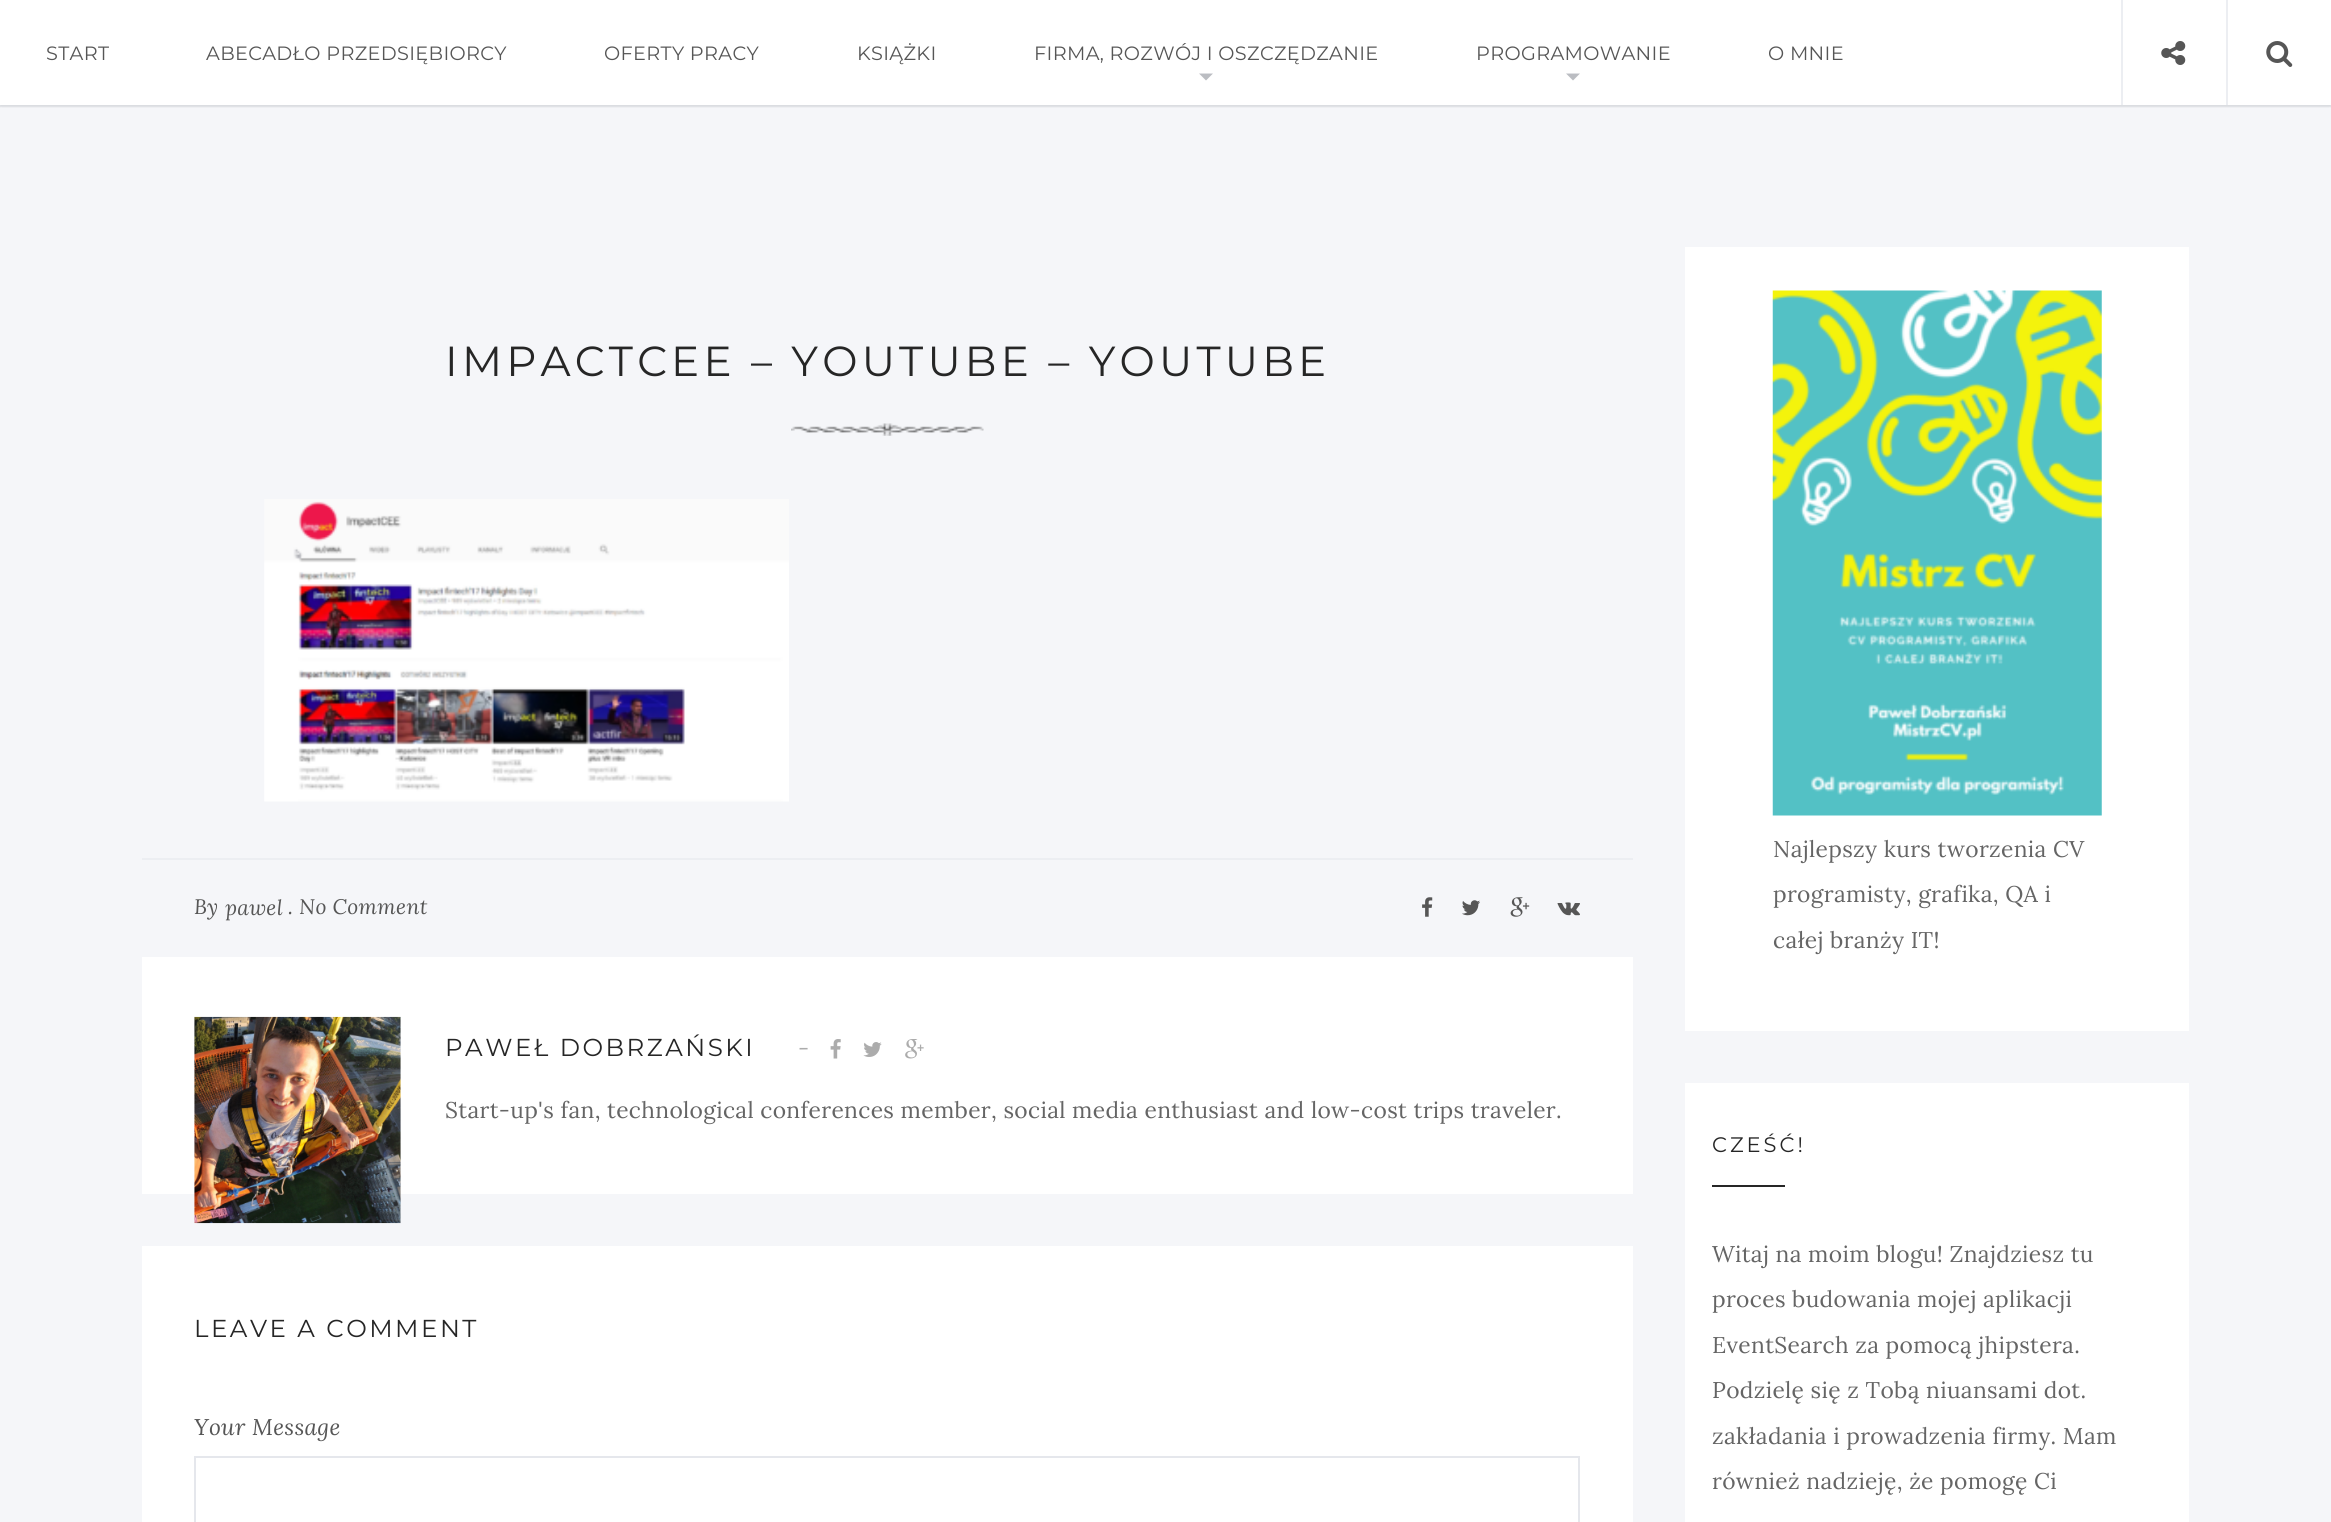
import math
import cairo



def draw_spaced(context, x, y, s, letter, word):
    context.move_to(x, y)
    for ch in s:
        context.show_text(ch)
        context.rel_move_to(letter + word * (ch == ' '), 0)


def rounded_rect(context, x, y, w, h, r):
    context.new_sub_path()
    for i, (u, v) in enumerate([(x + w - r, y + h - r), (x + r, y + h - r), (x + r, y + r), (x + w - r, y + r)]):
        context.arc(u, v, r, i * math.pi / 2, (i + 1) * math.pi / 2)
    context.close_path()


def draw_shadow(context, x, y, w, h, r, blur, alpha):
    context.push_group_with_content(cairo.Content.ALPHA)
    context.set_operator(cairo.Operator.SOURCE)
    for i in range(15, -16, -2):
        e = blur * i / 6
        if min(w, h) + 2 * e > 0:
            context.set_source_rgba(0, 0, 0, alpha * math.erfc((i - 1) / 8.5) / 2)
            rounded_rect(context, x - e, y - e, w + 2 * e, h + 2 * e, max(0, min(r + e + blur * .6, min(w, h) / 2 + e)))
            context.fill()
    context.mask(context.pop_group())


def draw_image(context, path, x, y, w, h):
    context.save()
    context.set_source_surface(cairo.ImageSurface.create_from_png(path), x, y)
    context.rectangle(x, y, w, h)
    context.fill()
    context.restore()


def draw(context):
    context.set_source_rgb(245 / 255, 246 / 255, 249 / 255)
    context.paint()
    context.set_source_rgb(1, 1, 1)
    context.rectangle(0, 0, 2331, 105)
    context.fill()
    context.set_source_rgb(234 / 255, 236 / 255, 240 / 255)
    context.rectangle(0, 105, 2331, 2)
    context.fill()
    context.save()
    context.rectangle(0, 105, 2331, 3)
    context.clip()
    context.set_source_rgb(0, 0, 0)
    draw_shadow(context, 0, 0, 2331, 105, 0, 2.5, 0.15)
    context.restore()
    context.set_source_rgb(187 / 255, 189 / 255, 194 / 255)
    context.new_path()
    context.move_to(1199, 73.5)
    context.line_to(1213, 73.5)
    context.line_to(1206, 80.5)
    context.close_path()
    context.fill()
    context.new_path()
    context.move_to(1566, 73.5)
    context.line_to(1580, 73.5)
    context.line_to(1573, 80.5)
    context.close_path()
    context.fill()
    context.set_source_rgb(236 / 255, 238 / 255, 242 / 255)
    context.rectangle(2121, 0, 2, 105)
    context.fill()
    draw_image(context, "images/1.png", 2161, 41, 25, 24)
    context.rectangle(2226, 0, 2, 105)
    context.fill()
    draw_image(context, "images/2.png", 2266, 41, 27, 26)
    draw_image(context, "images/3.png", 791, 423, 193, 13)
    draw_image(context, "images/4.png", 264, 499, 525, 303)
    context.rectangle(142, 858, 1491, 2)
    context.fill()
    draw_image(context, "images/5.png", 1422, 897, 11, 20)
    draw_image(context, "images/6.png", 1462, 900, 18, 16)
    draw_image(context, "images/7.png", 1510, 897, 20, 20)
    draw_image(context, "images/8.png", 1557, 902, 23, 14)
    context.set_source_rgb(1, 1, 1)
    context.rectangle(142, 957, 1491, 237)
    context.fill()
    draw_image(context, "images/9.png", 194, 1016, 207, 208)
    draw_image(context, "images/10.png", 830, 1039, 11, 20)
    draw_image(context, "images/11.png", 863, 1042, 19, 15)
    draw_image(context, "images/12.png", 905, 1039, 19, 20)
    context.rectangle(142, 1246, 1491, 276)
    context.fill()
    context.rectangle(195, 1457, 1384, 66)
    context.set_source_rgb(229 / 255, 231 / 255, 236 / 255)
    context.stroke()
    context.set_source_rgb(1, 1, 1)
    context.rectangle(1685, 247, 504, 784)
    context.fill()
    draw_image(context, "images/13.png", 1772, 290, 330, 526)
    context.rectangle(1685, 1083, 504, 439)
    context.fill()
    context.set_source_rgb(38 / 255, 38 / 255, 38 / 255)
    context.rectangle(1712, 1185, 73, 2)
    context.fill()
    context.select_font_face("Montserrat")
    context.set_font_size(19.25)
    context.set_source_rgb(86 / 255, 86 / 255, 86 / 255)
    draw_spaced(context, 46, 60, "START", 0.34, 0)
    draw_spaced(context, 206, 60, "ABECADŁO PRZEDSIĘBIORCY", 0.34, 0)
    draw_spaced(context, 604, 60, "OFERTY PRACY", 0.34, 0)
    draw_spaced(context, 857, 60, "KSIĄŻKI", 0.34, 0)
    draw_spaced(context, 1034, 60, "FIRMA, ROZWÓJ I OSZCZĘDZANIE", 0.34, 0)
    draw_spaced(context, 1476, 60, "PROGRAMOWANIE", 0.34, 0)
    draw_spaced(context, 1768, 60, "O MNIE", 0.34, 0)
    context.set_font_size(42)
    context.set_source_rgb(38 / 255, 38 / 255, 38 / 255)
    draw_spaced(context, 445, 376, "IMPACTCEE – YOUTUBE – YOUTUBE", 4.2, 0)
    context.select_font_face("Lora", cairo.FontSlant.ITALIC)
    context.set_font_size(21)
    context.set_source_rgb(86 / 255, 86 / 255, 86 / 255)
    draw_spaced(context, 194, 914, "By", 0.34, 0)
    draw_spaced(context, 225, 915, "pawel", 0.34, 0)
    draw_spaced(context, 288, 914, ". No Comment", 0.34, 0)
    context.select_font_face("Montserrat")
    context.set_font_size(24.5)
    context.set_source_rgb(38 / 255, 38 / 255, 38 / 255)
    draw_spaced(context, 445, 1056, "PAWEŁ DOBRZAŃSKI", 2.5, 0)
    context.select_font_face("Lora")
    context.set_font_size(22.75)
    context.set_source_rgb(172 / 255, 172 / 255, 172 / 255)
    draw_spaced(context, 798, 1056, "-", 0.34, 0)
    context.set_source_rgb(101 / 255, 101 / 255, 101 / 255)
    draw_spaced(context, 445, 1118, "Start-up's fan, technological conferences member, social media enthusiast and low-cost trips traveler.", 0.34, 0)
    context.select_font_face("Montserrat")
    context.set_font_size(24.5)
    context.set_source_rgb(38 / 255, 38 / 255, 38 / 255)
    draw_spaced(context, 194, 1337, "LEAVE A COMMENT", 2.5, 0)
    context.select_font_face("Lora", cairo.FontSlant.ITALIC)
    context.set_font_size(22.75)
    context.set_source_rgb(86 / 255, 86 / 255, 86 / 255)
    draw_spaced(context, 194, 1435, "Your Message", 0.34, 0)
    context.select_font_face("Lora")
    context.set_source_rgb(101 / 255, 101 / 255, 101 / 255)
    draw_spaced(context, 1773, 857, "Najlepszy kurs tworzenia CV", 0.34, 0)
    draw_spaced(context, 1773, 902, "programisty, grafika, QA i", 0.34, 0)
    draw_spaced(context, 1773, 948, "całej branży IT!", 0.34, 0)
    context.select_font_face("Montserrat")
    context.set_font_size(21)
    context.set_source_rgb(38 / 255, 38 / 255, 38 / 255)
    draw_spaced(context, 1712, 1152, "CZEŚĆ!", 3, 0)
    context.select_font_face("Lora")
    context.set_font_size(22.75)
    context.set_source_rgb(101 / 255, 101 / 255, 101 / 255)
    draw_spaced(context, 1712, 1262, "Witaj na moim blogu! Znajdziesz tu", 0.34, 0)
    draw_spaced(context, 1712, 1307, "proces budowania mojej aplikacji", 0.34, 0)
    draw_spaced(context, 1712, 1353, "EventSearch za pomocą jhipstera.", 0.34, 0)
    draw_spaced(context, 1712, 1398, "Podzielę się z Tobą niuansami dot.", 0.34, 0)
    draw_spaced(context, 1712, 1444, "zakładania i prowadzenia firmy. Mam", 0.34, 0)
    draw_spaced(context, 1712, 1489, "również nadzieję, że pomogę Ci", 0.34, 0)


surface = cairo.ImageSurface(cairo.Format.RGB24, 2331, 1522)
context = cairo.Context(surface)
options = cairo.FontOptions()
options.set_hint_metrics(cairo.HintMetrics.OFF)
options.set_hint_style(cairo.HintStyle.NONE)
context.set_font_options(options)
context.set_miter_limit(4)
draw(context)
surface.write_to_png("out.png")
